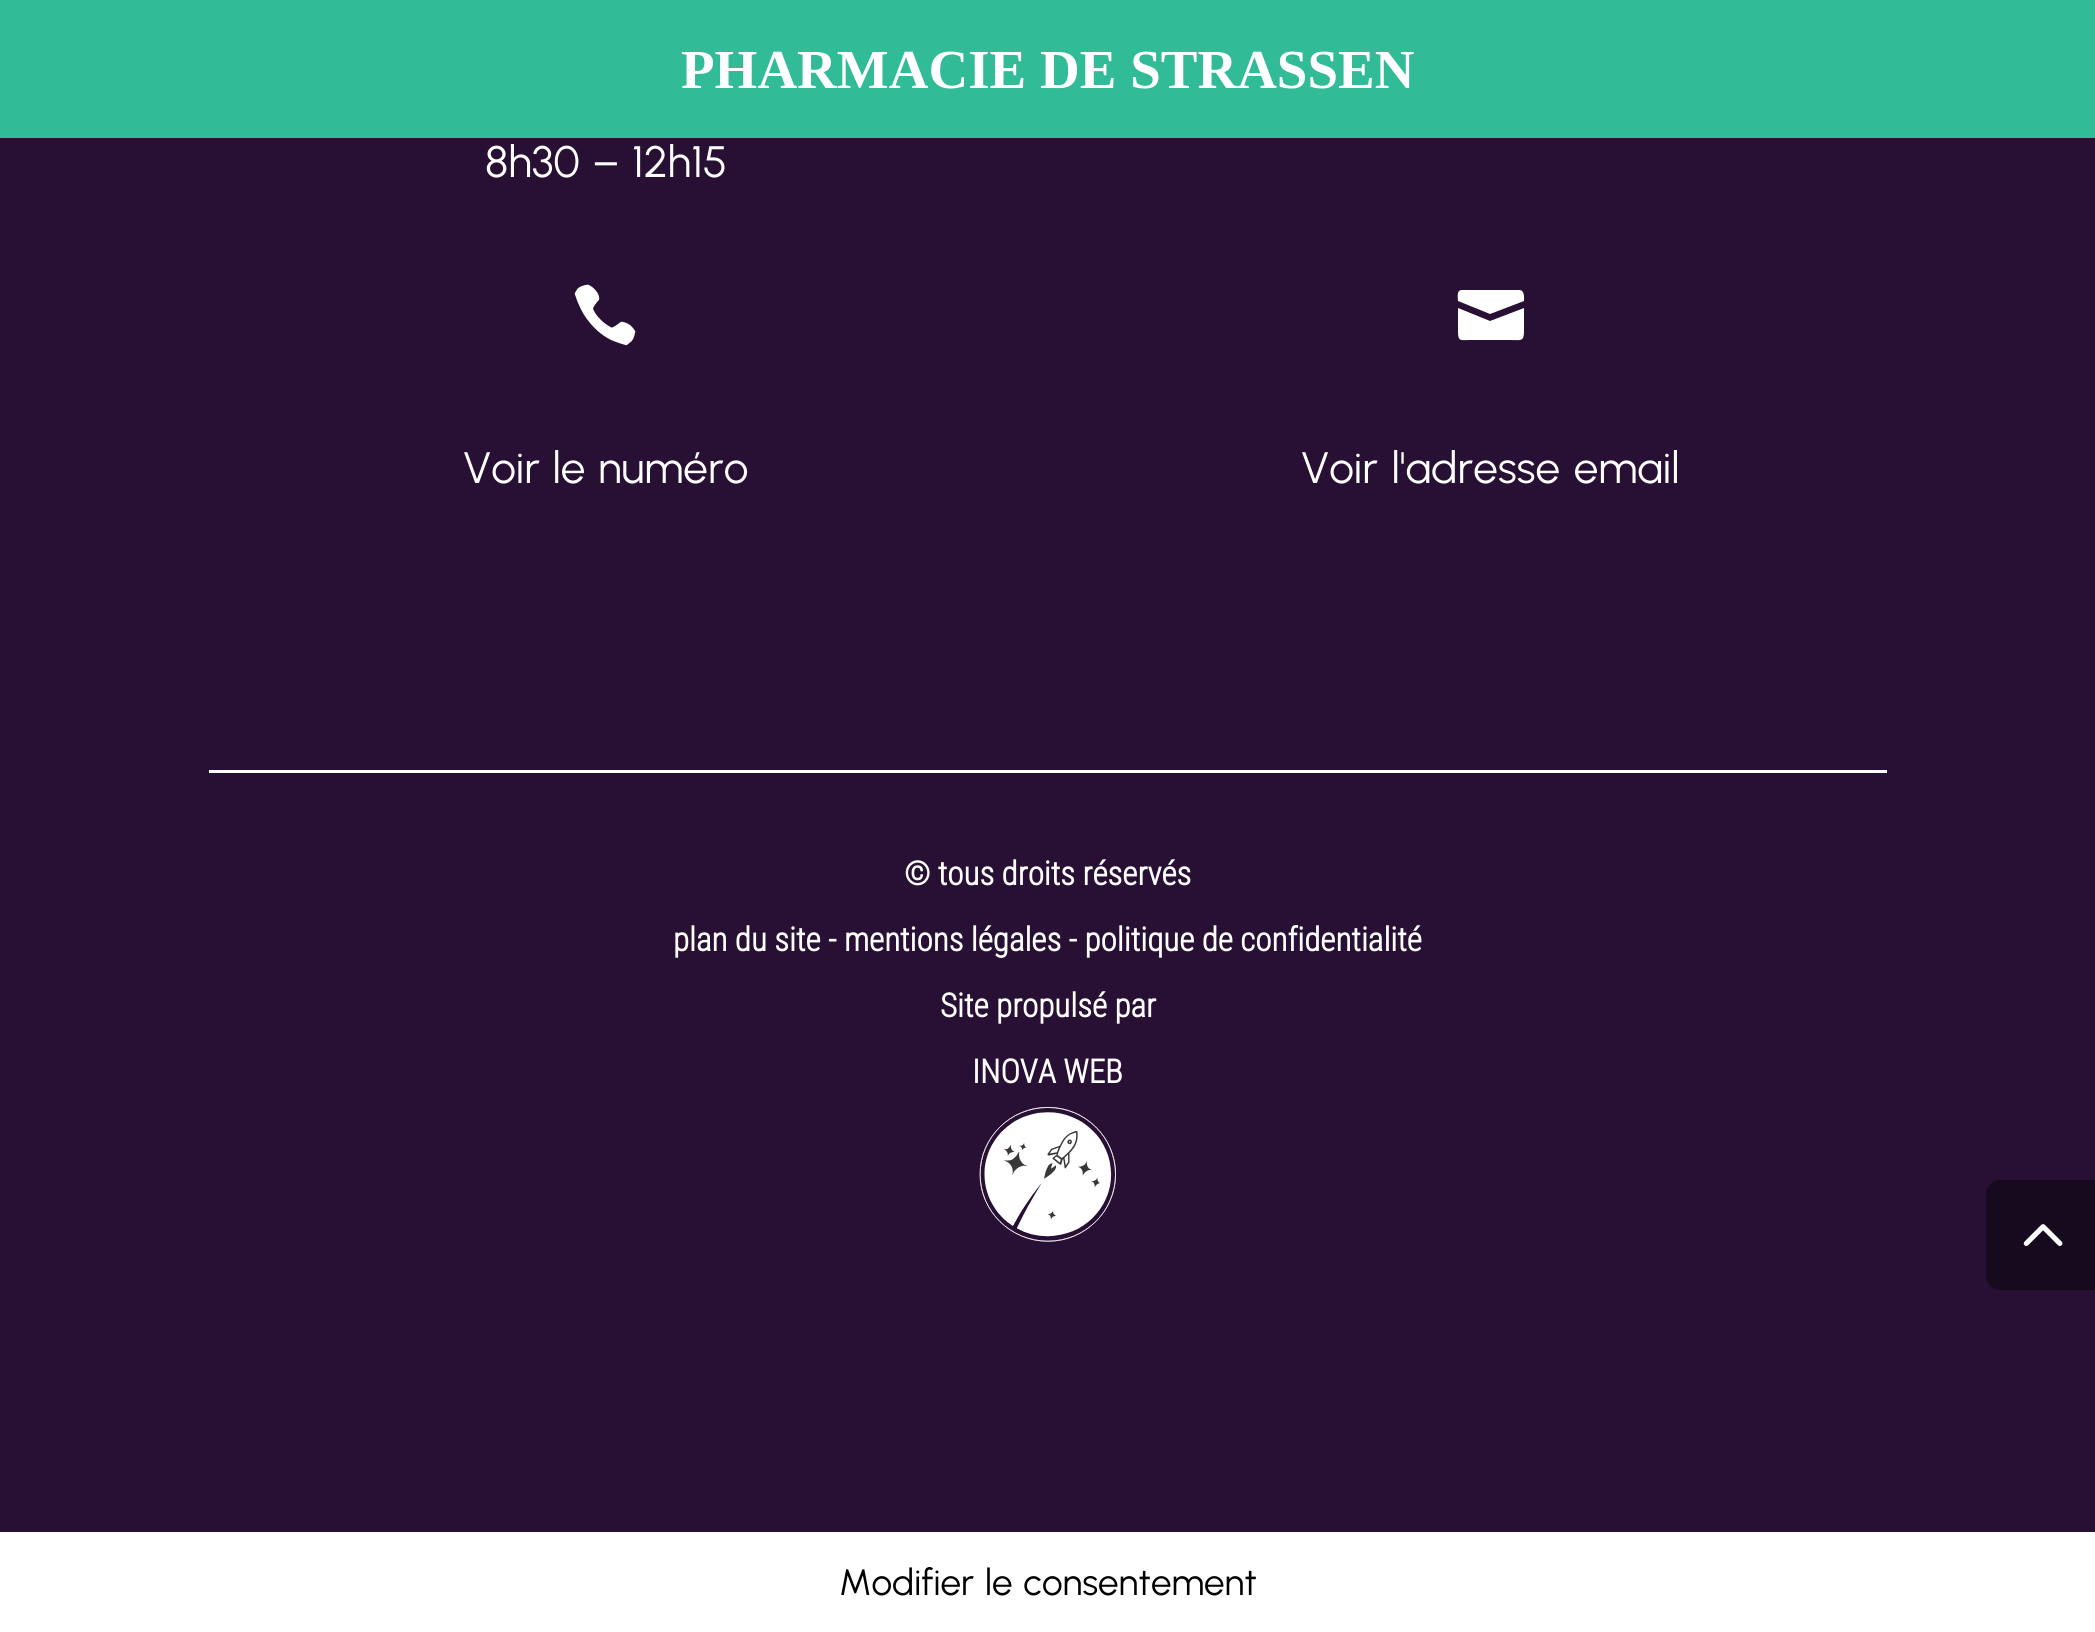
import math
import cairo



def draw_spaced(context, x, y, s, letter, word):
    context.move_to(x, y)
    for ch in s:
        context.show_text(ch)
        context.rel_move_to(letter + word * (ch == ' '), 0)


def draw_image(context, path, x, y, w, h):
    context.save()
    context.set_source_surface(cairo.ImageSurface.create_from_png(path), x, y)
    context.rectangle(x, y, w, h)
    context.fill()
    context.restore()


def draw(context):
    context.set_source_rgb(1, 1, 1)
    context.paint()
    context.set_source_rgb(49 / 255, 187 / 255, 151 / 255)
    context.rectangle(0, 0, 2095, 138)
    context.fill()
    context.set_source_rgb(39 / 255, 16 / 255, 51 / 255)
    context.rectangle(0, 138, 2095, 1394)
    context.fill()
    draw_image(context, "images/1.png", 574, 284, 62, 62)
    context.set_source_rgb(1, 1, 1)
    context.new_path()
    context.move_to(1519, 290)
    context.line_to(1462, 290)
    context.curve_to(1456, 290, 1458, 298, 1458, 301)
    context.line_to(1490, 314)
    context.line_to(1524, 301)
    context.curve_to(1524, 298, 1525, 290, 1519, 290)
    context.close_path()
    context.move_to(1458, 308)
    context.line_to(1458, 331)
    context.curve_to(1458, 342, 1460, 340, 1471, 340)
    context.line_to(1510, 340)
    context.curve_to(1521, 340, 1524, 342, 1524, 331)
    context.line_to(1524, 308)
    context.line_to(1490, 321)
    context.close_path()
    context.fill()
    context.rectangle(209, 770, 1678, 3)
    context.fill()
    draw_image(context, "images/2.png", 979, 1106, 137, 136)
    context.set_source_rgb(23 / 255, 10 / 255, 31 / 255)
    context.new_path()
    context.move_to(2000, 1180)
    context.line_to(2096, 1180)
    context.line_to(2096, 1290)
    context.line_to(2000, 1290)
    context.curve_to(1992.5, 1290, 1986, 1283.5, 1986, 1276)
    context.line_to(1986, 1194)
    context.curve_to(1986, 1186.5, 1992.5, 1180, 2000, 1180)
    context.close_path()
    context.fill()
    draw_image(context, "images/3.png", 2023, 1224, 40, 22)
    context.select_font_face("Liberation Serif", cairo.FontSlant.NORMAL, cairo.FontWeight.BOLD)
    context.set_font_size(55)
    context.set_source_rgb(1, 1, 1)
    context.move_to(681, 88)
    context.show_text("PHARMACIE DE STRASSEN")
    context.select_font_face("Urbanist")
    context.set_font_size(44)
    draw_spaced(context, 485, 177, "8h30 – 12h15", 0, 2)
    draw_spaced(context, 463, 483, "Voir le numéro", 0, 2)
    draw_spaced(context, 1301, 483, "Voir l'adresse email", 0, 3)
    context.select_font_face("Roboto Condensed", cairo.FontSlant.NORMAL, cairo.FontWeight.BOLD)
    context.set_font_size(33)
    context.move_to(904, 885)
    context.show_text("© tous droits réservés")
    context.move_to(673, 951)
    context.show_text("plan du site - mentions légales - politique de confidentialité")
    context.move_to(940, 1017)
    context.show_text("Site propulsé par")
    context.move_to(972, 1083)
    context.show_text("INOVA WEB")
    context.select_font_face("Urbanist")
    context.set_font_size(36.75)
    context.set_source_rgb(0, 0, 0)
    draw_spaced(context, 839, 1595, "Modifier le consentement", 0, 2)


surface = cairo.ImageSurface(cairo.Format.RGB24, 2095, 1632)
context = cairo.Context(surface)
options = cairo.FontOptions()
options.set_hint_metrics(cairo.HintMetrics.OFF)
options.set_hint_style(cairo.HintStyle.NONE)
context.set_font_options(options)
context.set_miter_limit(4)
draw(context)
surface.write_to_png("out.png")
